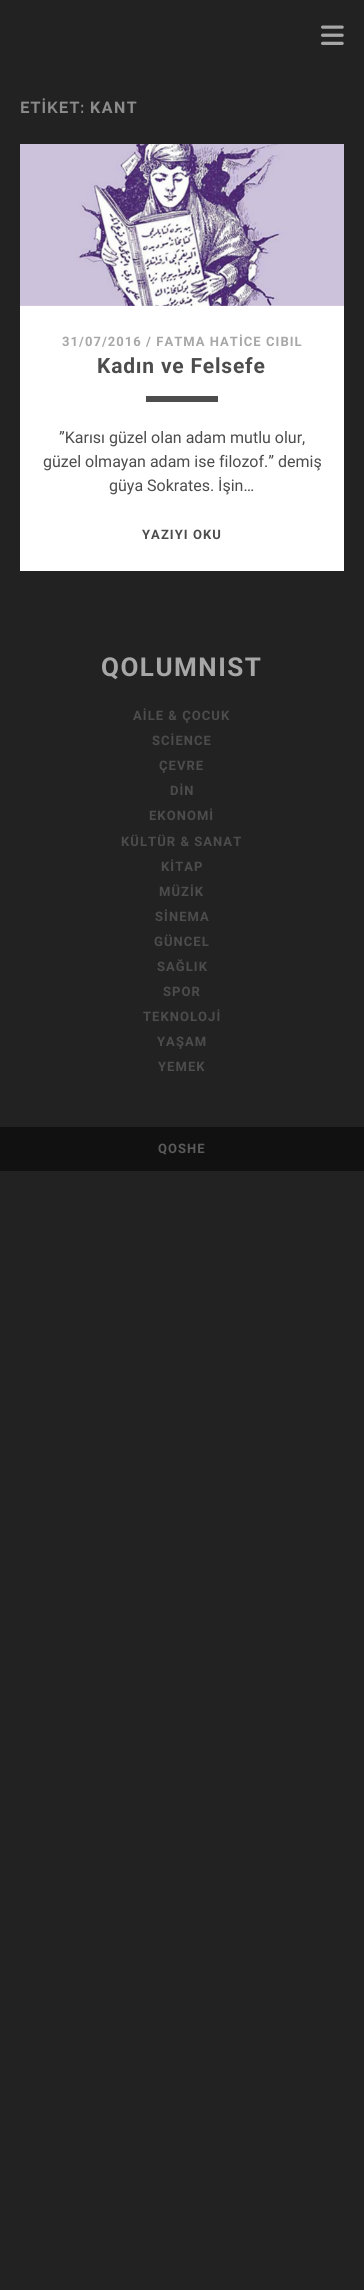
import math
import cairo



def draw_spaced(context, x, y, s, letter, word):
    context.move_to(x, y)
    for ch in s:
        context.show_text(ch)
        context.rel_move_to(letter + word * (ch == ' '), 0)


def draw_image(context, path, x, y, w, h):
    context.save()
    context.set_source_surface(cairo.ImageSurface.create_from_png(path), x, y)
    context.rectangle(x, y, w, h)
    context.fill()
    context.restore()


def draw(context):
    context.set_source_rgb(34 / 255, 34 / 255, 34 / 255)
    context.paint()
    draw_image(context, "images/1.png", 321, 25, 23, 20)
    context.set_source_rgb(1, 1, 1)
    context.rectangle(20, 305, 324, 266)
    context.fill()
    draw_image(context, "images/2.png", 20, 144, 324, 162)
    context.set_source_rgb(77 / 255, 77 / 255, 77 / 255)
    context.rectangle(146, 396, 72, 6)
    context.fill()
    context.set_source_rgb(17 / 255, 17 / 255, 17 / 255)
    context.rectangle(0, 1127, 364, 44)
    context.fill()
    context.select_font_face("Raleway", cairo.FontSlant.NORMAL, cairo.FontWeight.BOLD)
    context.set_font_size(16)
    context.set_source_rgb(140 / 255, 140 / 255, 140 / 255)
    draw_spaced(context, 20, 113, "ETİKET:", 1, 0)
    context.select_font_face("Roboto", cairo.FontSlant.NORMAL, cairo.FontWeight.BOLD)
    draw_spaced(context, 90, 113, "KANT", 1.5, 0)
    context.set_font_size(13)
    context.set_source_rgb(167 / 255, 167 / 255, 167 / 255)
    draw_spaced(context, 62, 346, "31/07/2016 / FATMA HATİCE CIBIL", 1.05, 0)
    context.set_font_size(21)
    context.set_source_rgb(76 / 255, 76 / 255, 76 / 255)
    draw_spaced(context, 97, 373, "Kadın ve Felsefe", 0.8, 0)
    context.select_font_face("Roboto")
    context.set_font_size(16)
    context.move_to(59, 443)
    context.show_text("”Karısı güzel olan adam mutlu olur,")
    context.move_to(43, 467)
    context.show_text("güzel olmayan adam ise filozof.” demiş")
    context.move_to(109, 491)
    context.show_text("güya Sokrates. İşin…")
    context.select_font_face("Roboto", cairo.FontSlant.NORMAL, cairo.FontWeight.BOLD)
    context.set_font_size(13)
    draw_spaced(context, 142, 539, "YAZIYI OKU", 1.05, 0)
    context.set_font_size(26)
    context.set_source_rgb(167 / 255, 167 / 255, 167 / 255)
    draw_spaced(context, 101, 676, "QOLUMNIST", 1.5, 0)
    context.set_font_size(13)
    context.set_source_rgb(76 / 255, 76 / 255, 76 / 255)
    draw_spaced(context, 133, 720, "AİLE & ÇOCUK", 1.05, 0)
    draw_spaced(context, 152, 745, "SCİENCE", 1.05, 0)
    draw_spaced(context, 159, 770, "ÇEVRE", 1.05, 0)
    draw_spaced(context, 170, 795, "DİN", 1.05, 0)
    draw_spaced(context, 149, 820, "EKONOMİ", 1.05, 0)
    draw_spaced(context, 121, 846, "KÜLTÜR & SANAT", 1.05, 0)
    draw_spaced(context, 161, 871, "KİTAP", 1.05, 0)
    draw_spaced(context, 159, 896, "MÜZİK", 1.05, 0)
    draw_spaced(context, 155, 921, "SİNEMA", 1.05, 0)
    draw_spaced(context, 154, 946, "GÜNCEL", 1.05, 0)
    draw_spaced(context, 157, 971, "SAĞLIK", 1.05, 0)
    draw_spaced(context, 163, 996, "SPOR", 1.05, 0)
    draw_spaced(context, 143, 1021, "TEKNOLOJİ", 1.05, 0)
    draw_spaced(context, 157, 1046, "YAŞAM", 1.05, 0)
    draw_spaced(context, 158, 1071, "YEMEK", 1.05, 0)
    context.set_source_rgb(91 / 255, 91 / 255, 91 / 255)
    draw_spaced(context, 158, 1153, "QOSHE", 1.05, 0)


surface = cairo.ImageSurface(cairo.Format.RGB24, 364, 2290)
context = cairo.Context(surface)
options = cairo.FontOptions()
options.set_hint_metrics(cairo.HintMetrics.OFF)
options.set_hint_style(cairo.HintStyle.NONE)
context.set_font_options(options)
context.set_miter_limit(4)
draw(context)
surface.write_to_png("out.png")
